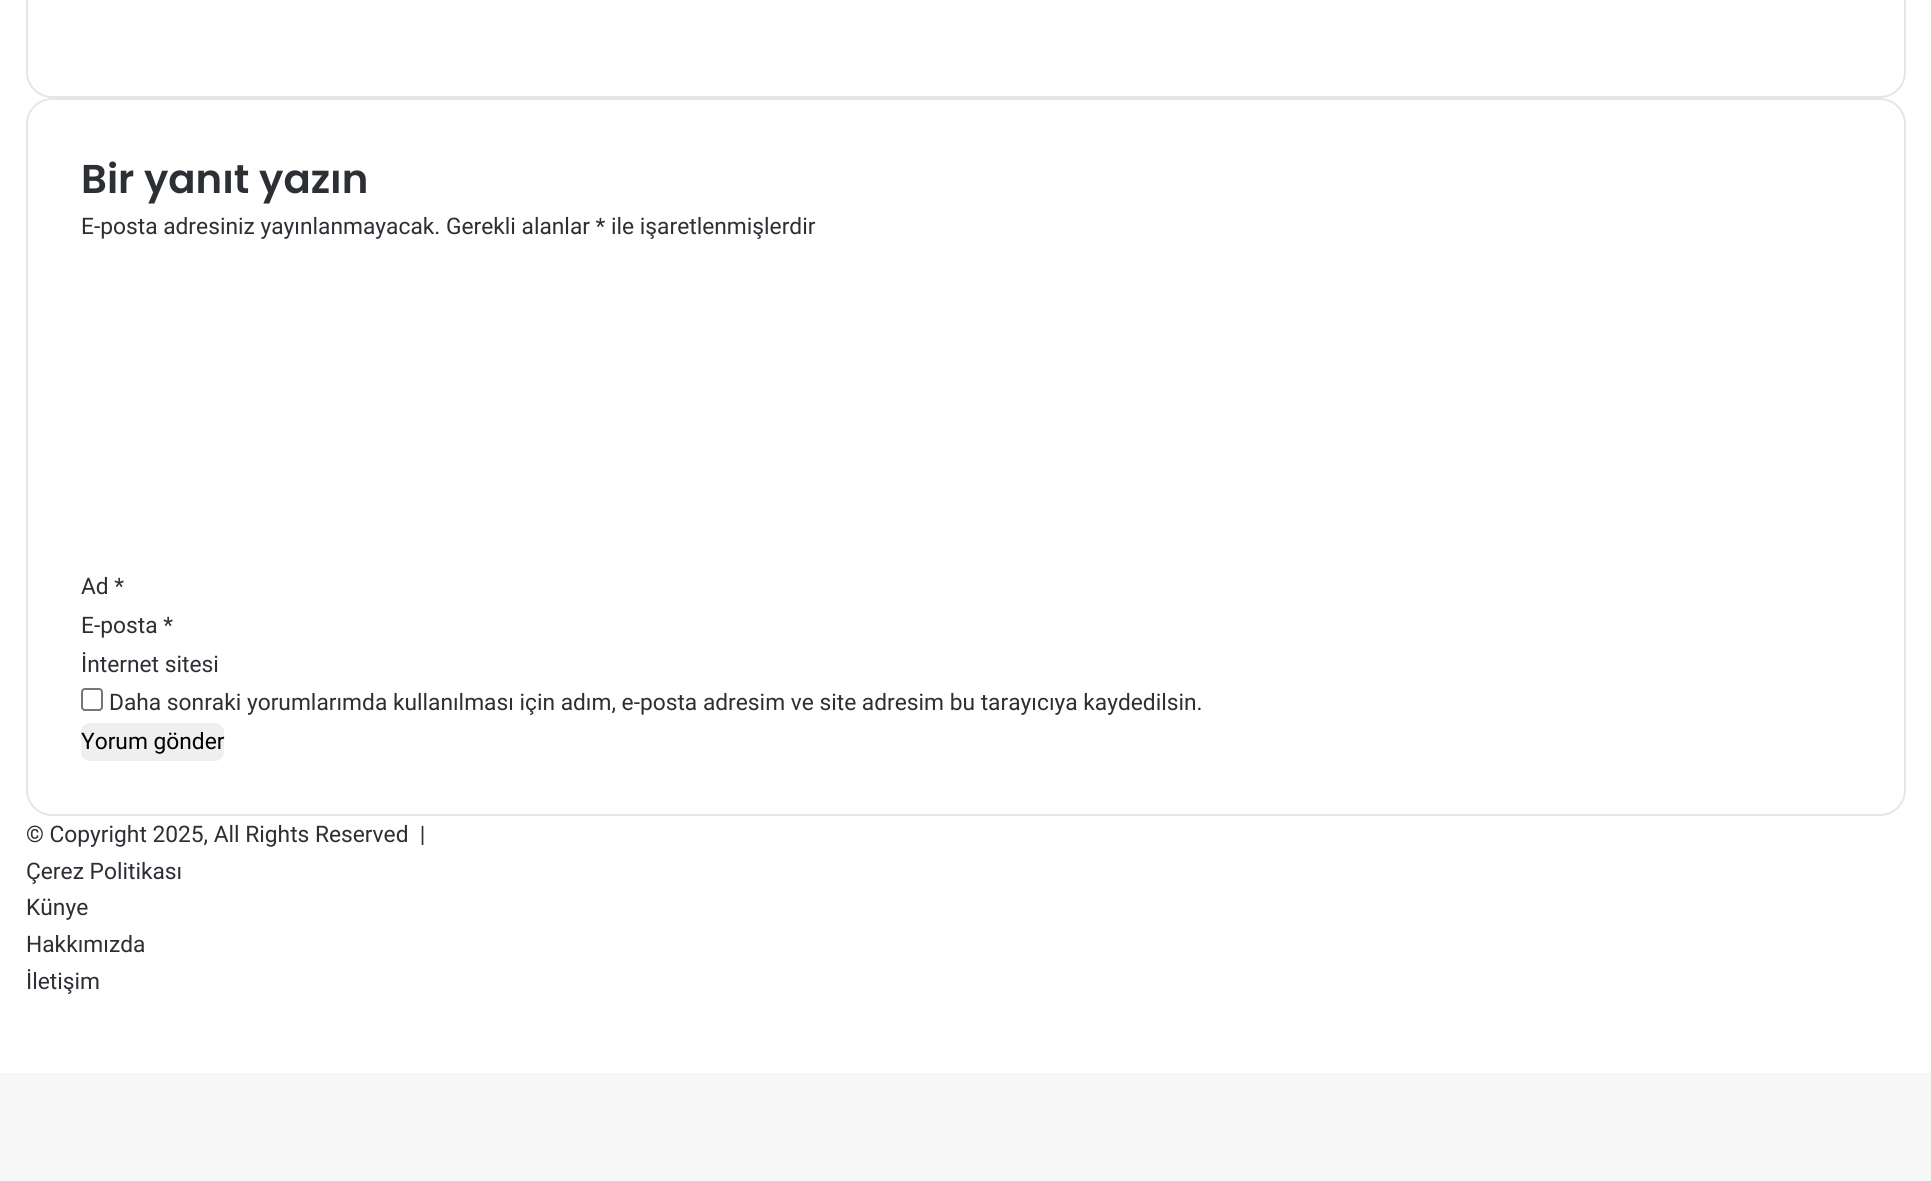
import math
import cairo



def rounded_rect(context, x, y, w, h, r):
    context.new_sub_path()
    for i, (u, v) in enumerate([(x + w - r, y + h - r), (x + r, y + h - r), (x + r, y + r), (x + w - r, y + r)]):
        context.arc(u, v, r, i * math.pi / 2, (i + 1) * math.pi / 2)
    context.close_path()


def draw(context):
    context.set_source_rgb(247 / 255, 247 / 255, 247 / 255)
    context.paint()
    context.set_source_rgb(1, 1, 1)
    context.rectangle(0, 0, 1931, 1073)
    context.fill()
    rounded_rect(context, 27, -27, 1878, 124, 25)
    context.set_source_rgb(230 / 255, 230 / 255, 230 / 255)
    context.stroke()
    rounded_rect(context, 27, 99, 1878, 716, 25)
    context.stroke()
    rounded_rect(context, 82, 689, 20, 21, 3)
    context.set_source_rgb(118 / 255, 118 / 255, 118 / 255)
    context.stroke()
    context.set_source_rgb(239 / 255, 239 / 255, 239 / 255)
    rounded_rect(context, 81, 723, 143, 38, 9)
    context.fill()
    context.select_font_face("Poppins SemiBold")
    context.set_font_size(40.25)
    context.set_source_rgb(44 / 255, 47 / 255, 52 / 255)
    context.move_to(81, 193)
    context.show_text("Bir yanıt yazın")
    context.select_font_face("Roboto")
    context.set_font_size(22.75)
    context.move_to(81, 234)
    context.show_text("E-posta adresiniz yayınlanmayacak. Gerekli alanlar * ile işaretlenmişlerdir")
    context.move_to(81, 594)
    context.show_text("Ad *")
    context.move_to(81, 633)
    context.show_text("E-posta *")
    context.move_to(81, 672)
    context.show_text("İnternet sitesi")
    context.move_to(109, 710)
    context.show_text("Daha sonraki yorumlarımda kullanılması için adım, e-posta adresim ve site adresim bu tarayıcıya kaydedilsin.")
    context.set_source_rgb(0, 0, 0)
    context.move_to(81, 749)
    context.show_text("Yorum gönder")
    context.set_source_rgb(44 / 255, 47 / 255, 52 / 255)
    context.move_to(26, 842)
    context.show_text("© Copyright 2025, All Rights Reserved  |")
    context.move_to(26, 879)
    context.show_text("Çerez Politikası")
    context.move_to(26, 915)
    context.show_text("Künye")
    context.move_to(26, 952)
    context.show_text("Hakkımızda")
    context.move_to(26, 989)
    context.show_text("İletişim")


surface = cairo.ImageSurface(cairo.Format.RGB24, 1931, 1181)
context = cairo.Context(surface)
options = cairo.FontOptions()
options.set_hint_metrics(cairo.HintMetrics.OFF)
options.set_hint_style(cairo.HintStyle.NONE)
context.set_font_options(options)
context.set_miter_limit(4)
draw(context)
surface.write_to_png("out.png")
